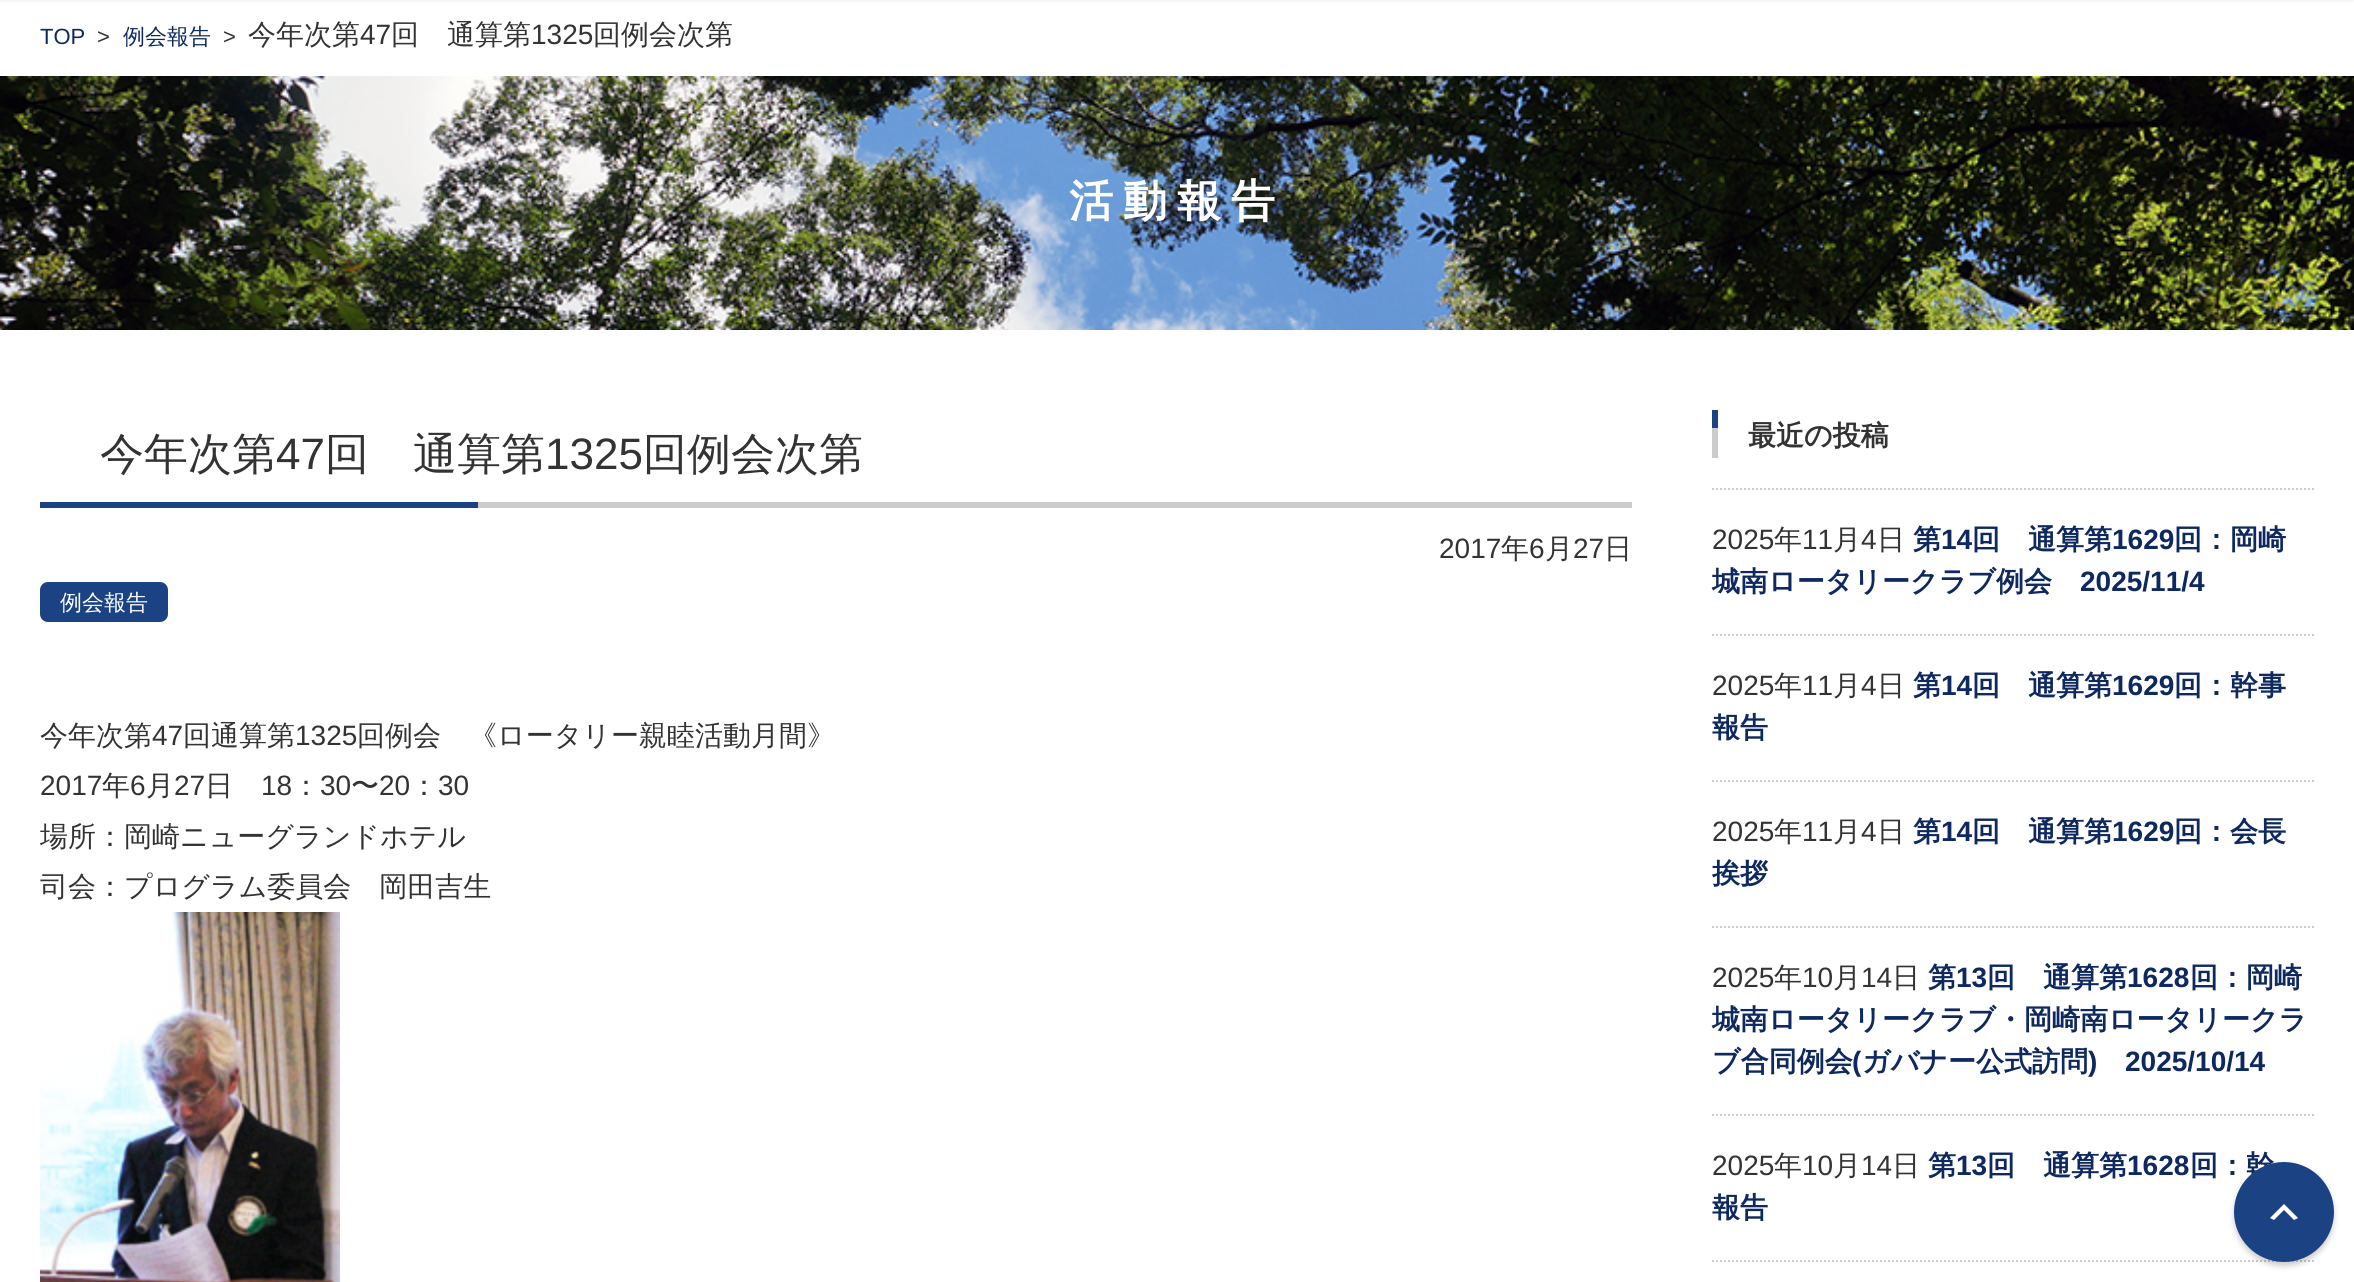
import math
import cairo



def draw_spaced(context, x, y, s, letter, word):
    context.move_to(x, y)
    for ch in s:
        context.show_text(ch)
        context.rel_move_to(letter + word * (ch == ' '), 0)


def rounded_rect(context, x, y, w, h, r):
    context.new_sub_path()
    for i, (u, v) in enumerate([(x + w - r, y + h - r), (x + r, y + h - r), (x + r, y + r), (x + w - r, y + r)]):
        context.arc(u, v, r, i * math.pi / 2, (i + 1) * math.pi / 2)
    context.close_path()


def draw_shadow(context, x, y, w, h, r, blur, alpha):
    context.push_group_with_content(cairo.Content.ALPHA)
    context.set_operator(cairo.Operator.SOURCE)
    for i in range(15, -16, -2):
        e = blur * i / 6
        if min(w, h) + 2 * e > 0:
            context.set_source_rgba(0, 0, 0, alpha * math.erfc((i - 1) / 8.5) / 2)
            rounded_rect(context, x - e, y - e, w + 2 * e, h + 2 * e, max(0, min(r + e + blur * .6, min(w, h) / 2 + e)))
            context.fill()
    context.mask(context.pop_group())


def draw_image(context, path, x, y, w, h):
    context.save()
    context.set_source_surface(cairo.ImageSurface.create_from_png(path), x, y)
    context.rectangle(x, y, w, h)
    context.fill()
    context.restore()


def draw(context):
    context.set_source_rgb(1, 1, 1)
    context.paint()
    context.set_source_rgb(0, 0, 0)
    draw_shadow(context, 0, -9, 2354, 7, 0, 3, 0.2)
    draw_image(context, "images/1.png", 0, 76, 2354, 254)
    context.set_source_rgb(204 / 255, 204 / 255, 204 / 255)
    context.rectangle(478, 502, 1154, 6)
    context.fill()
    context.set_source_rgb(27 / 255, 67 / 255, 132 / 255)
    context.rectangle(40, 502, 438, 6)
    context.fill()
    rounded_rect(context, 40, 582, 128, 40, 8)
    context.fill()
    draw_image(context, "images/2.png", 40, 912, 300, 370)
    context.set_source_rgb(204 / 255, 204 / 255, 204 / 255)
    context.rectangle(1712, 428, 6, 30)
    context.fill()
    context.set_source_rgb(27 / 255, 67 / 255, 132 / 255)
    context.rectangle(1712, 410, 6, 18)
    context.fill()
    context.new_path()
    context.move_to(1712, 489)
    context.line_to(2314, 489)
    context.set_source_rgb(204 / 255, 204 / 255, 204 / 255)
    context.set_dash([2, 2])
    context.stroke()
    context.new_path()
    context.move_to(1712, 635)
    context.line_to(2314, 635)
    context.stroke()
    context.new_path()
    context.move_to(1712, 781)
    context.line_to(2314, 781)
    context.stroke()
    context.new_path()
    context.move_to(1712, 927)
    context.line_to(2314, 927)
    context.stroke()
    context.new_path()
    context.move_to(1712, 1115)
    context.line_to(2314, 1115)
    context.stroke()
    context.new_path()
    context.move_to(1712, 1261)
    context.line_to(2314, 1261)
    context.stroke()
    context.set_source_rgb(0, 0, 0)
    draw_shadow(context, 2234, 1166, 100, 100, 50, 3, 0.2)
    context.select_font_face("Liberation Sans")
    context.set_font_size(22)
    context.set_source_rgb(14 / 255, 40 / 255, 96 / 255)
    context.move_to(40, 44)
    context.show_text("TOP")
    context.set_source_rgb(51 / 255, 51 / 255, 51 / 255)
    context.move_to(97, 44)
    context.show_text(">")
    context.select_font_face("WenQuanYi Zen Hei Medium")
    context.set_source_rgb(14 / 255, 40 / 255, 96 / 255)
    context.move_to(123, 44)
    context.show_text("例会報告")
    context.select_font_face("Liberation Sans")
    context.set_source_rgb(51 / 255, 51 / 255, 51 / 255)
    context.move_to(223, 44)
    context.show_text(">")
    context.select_font_face("WenQuanYi Zen Hei Medium")
    context.set_font_size(28)
    context.move_to(248, 44)
    context.show_text("今年次第")
    context.select_font_face("Liberation Sans")
    context.move_to(360, 44)
    context.show_text("47")
    context.select_font_face("WenQuanYi Zen Hei Medium")
    context.move_to(391, 44)
    context.show_text("回　通算第")
    context.select_font_face("Liberation Sans")
    context.move_to(531, 44)
    context.show_text("1325")
    context.select_font_face("WenQuanYi Zen Hei Medium")
    context.move_to(593, 44)
    context.show_text("回例会次第")
    context.select_font_face("WenQuanYi Zen Hei", cairo.FontSlant.NORMAL, cairo.FontWeight.BOLD)
    context.set_font_size(44)
    context.set_source_rgb(1, 1, 1)
    draw_spaced(context, 1069, 216, "活動報告", 10, 0)
    context.select_font_face("WenQuanYi Zen Hei Medium")
    context.set_source_rgb(51 / 255, 51 / 255, 51 / 255)
    context.move_to(100, 469)
    context.show_text("今年次第")
    context.select_font_face("Liberation Sans")
    context.move_to(276, 469)
    context.show_text("47")
    context.select_font_face("WenQuanYi Zen Hei Medium")
    context.move_to(325, 469)
    context.show_text("回　通算第")
    context.select_font_face("Liberation Sans")
    context.move_to(545, 469)
    context.show_text("1325")
    context.select_font_face("WenQuanYi Zen Hei Medium")
    context.move_to(643, 469)
    context.show_text("回例会次第")
    context.select_font_face("Liberation Sans")
    context.set_font_size(28)
    context.move_to(1439, 558)
    context.show_text("2017")
    context.select_font_face("WenQuanYi Zen Hei Medium")
    context.move_to(1501, 558)
    context.show_text("年")
    context.select_font_face("Liberation Sans")
    context.move_to(1529, 558)
    context.show_text("6")
    context.select_font_face("WenQuanYi Zen Hei Medium")
    context.move_to(1545, 558)
    context.show_text("月")
    context.select_font_face("Liberation Sans")
    context.move_to(1573, 558)
    context.show_text("27")
    context.select_font_face("WenQuanYi Zen Hei Medium")
    context.move_to(1604, 558)
    context.show_text("日")
    context.set_font_size(22)
    context.set_source_rgb(1, 1, 1)
    context.move_to(60, 610)
    context.show_text("例会報告")
    context.set_font_size(28)
    context.set_source_rgb(51 / 255, 51 / 255, 51 / 255)
    context.move_to(40, 745)
    context.show_text("今年次第")
    context.select_font_face("Liberation Sans")
    context.move_to(152, 745)
    context.show_text("47")
    context.select_font_face("WenQuanYi Zen Hei Medium")
    context.move_to(183, 745)
    context.show_text("回通算第")
    context.select_font_face("Liberation Sans")
    context.move_to(295, 745)
    context.show_text("1325")
    context.select_font_face("WenQuanYi Zen Hei Medium")
    context.move_to(357, 745)
    context.show_text("回例会　《ロータリー親睦活動月間》")
    context.select_font_face("Liberation Sans")
    context.move_to(40, 795)
    context.show_text("2017")
    context.select_font_face("WenQuanYi Zen Hei Medium")
    context.move_to(102, 795)
    context.show_text("年")
    context.select_font_face("Liberation Sans")
    context.move_to(130, 795)
    context.show_text("6")
    context.select_font_face("WenQuanYi Zen Hei Medium")
    context.move_to(146, 795)
    context.show_text("月")
    context.select_font_face("Liberation Sans")
    context.move_to(174, 795)
    context.show_text("27")
    context.select_font_face("WenQuanYi Zen Hei Medium")
    context.move_to(205, 795)
    context.show_text("日")
    context.select_font_face("Liberation Sans")
    context.move_to(261, 795)
    context.show_text("18")
    context.select_font_face("WenQuanYi Zen Hei Medium")
    context.move_to(292, 795)
    context.show_text("：")
    context.select_font_face("Liberation Sans")
    context.move_to(320, 795)
    context.show_text("30")
    context.select_font_face("WenQuanYi Zen Hei Medium")
    context.move_to(351, 795)
    context.show_text("〜")
    context.select_font_face("Liberation Sans")
    context.move_to(379, 795)
    context.show_text("20")
    context.select_font_face("WenQuanYi Zen Hei Medium")
    context.move_to(410, 795)
    context.show_text("：")
    context.select_font_face("Liberation Sans")
    context.move_to(438, 795)
    context.show_text("30")
    context.select_font_face("WenQuanYi Zen Hei Medium")
    context.move_to(40, 846)
    context.show_text("場所：岡崎ニューグランドホテル")
    context.move_to(40, 896)
    context.show_text("司会：プログラム委員会　岡田吉生")
    context.select_font_face("WenQuanYi Zen Hei", cairo.FontSlant.NORMAL, cairo.FontWeight.BOLD)
    context.move_to(1748, 445)
    context.show_text("最近の投稿")
    context.select_font_face("Liberation Sans")
    context.move_to(1712, 549)
    context.show_text("2025")
    context.select_font_face("WenQuanYi Zen Hei Medium")
    context.move_to(1774, 549)
    context.show_text("年")
    context.select_font_face("Liberation Sans")
    context.move_to(1802, 549)
    context.show_text("11")
    context.select_font_face("WenQuanYi Zen Hei Medium")
    context.move_to(1833, 549)
    context.show_text("月")
    context.select_font_face("Liberation Sans")
    context.move_to(1861, 549)
    context.show_text("4")
    context.select_font_face("WenQuanYi Zen Hei Medium")
    context.move_to(1877, 549)
    context.show_text("日")
    context.select_font_face("WenQuanYi Zen Hei", cairo.FontSlant.NORMAL, cairo.FontWeight.BOLD)
    context.set_source_rgb(14 / 255, 40 / 255, 96 / 255)
    context.move_to(1913, 549)
    context.show_text("第")
    context.select_font_face("Liberation Sans", cairo.FontSlant.NORMAL, cairo.FontWeight.BOLD)
    context.move_to(1941, 549)
    context.show_text("14")
    context.select_font_face("WenQuanYi Zen Hei", cairo.FontSlant.NORMAL, cairo.FontWeight.BOLD)
    context.move_to(1972, 549)
    context.show_text("回　通算第")
    context.select_font_face("Liberation Sans", cairo.FontSlant.NORMAL, cairo.FontWeight.BOLD)
    context.move_to(2112, 549)
    context.show_text("1629")
    context.select_font_face("WenQuanYi Zen Hei", cairo.FontSlant.NORMAL, cairo.FontWeight.BOLD)
    context.move_to(2174, 549)
    context.show_text("回：岡崎")
    context.move_to(1712, 591)
    context.show_text("城南ロータリークラブ例会")
    context.select_font_face("Liberation Sans", cairo.FontSlant.NORMAL, cairo.FontWeight.BOLD)
    context.move_to(2080, 591)
    context.show_text("2025/11/4")
    context.select_font_face("Liberation Sans")
    context.set_source_rgb(51 / 255, 51 / 255, 51 / 255)
    context.move_to(1712, 695)
    context.show_text("2025")
    context.select_font_face("WenQuanYi Zen Hei Medium")
    context.move_to(1774, 695)
    context.show_text("年")
    context.select_font_face("Liberation Sans")
    context.move_to(1802, 695)
    context.show_text("11")
    context.select_font_face("WenQuanYi Zen Hei Medium")
    context.move_to(1833, 695)
    context.show_text("月")
    context.select_font_face("Liberation Sans")
    context.move_to(1861, 695)
    context.show_text("4")
    context.select_font_face("WenQuanYi Zen Hei Medium")
    context.move_to(1877, 695)
    context.show_text("日")
    context.select_font_face("WenQuanYi Zen Hei", cairo.FontSlant.NORMAL, cairo.FontWeight.BOLD)
    context.set_source_rgb(14 / 255, 40 / 255, 96 / 255)
    context.move_to(1913, 695)
    context.show_text("第")
    context.select_font_face("Liberation Sans", cairo.FontSlant.NORMAL, cairo.FontWeight.BOLD)
    context.move_to(1941, 695)
    context.show_text("14")
    context.select_font_face("WenQuanYi Zen Hei", cairo.FontSlant.NORMAL, cairo.FontWeight.BOLD)
    context.move_to(1972, 695)
    context.show_text("回　通算第")
    context.select_font_face("Liberation Sans", cairo.FontSlant.NORMAL, cairo.FontWeight.BOLD)
    context.move_to(2112, 695)
    context.show_text("1629")
    context.select_font_face("WenQuanYi Zen Hei", cairo.FontSlant.NORMAL, cairo.FontWeight.BOLD)
    context.move_to(2174, 695)
    context.show_text("回：幹事")
    context.move_to(1712, 737)
    context.show_text("報告")
    context.select_font_face("Liberation Sans")
    context.set_source_rgb(51 / 255, 51 / 255, 51 / 255)
    context.move_to(1712, 841)
    context.show_text("2025")
    context.select_font_face("WenQuanYi Zen Hei Medium")
    context.move_to(1774, 841)
    context.show_text("年")
    context.select_font_face("Liberation Sans")
    context.move_to(1802, 841)
    context.show_text("11")
    context.select_font_face("WenQuanYi Zen Hei Medium")
    context.move_to(1833, 841)
    context.show_text("月")
    context.select_font_face("Liberation Sans")
    context.move_to(1861, 841)
    context.show_text("4")
    context.select_font_face("WenQuanYi Zen Hei Medium")
    context.move_to(1877, 841)
    context.show_text("日")
    context.select_font_face("WenQuanYi Zen Hei", cairo.FontSlant.NORMAL, cairo.FontWeight.BOLD)
    context.set_source_rgb(14 / 255, 40 / 255, 96 / 255)
    context.move_to(1913, 841)
    context.show_text("第")
    context.select_font_face("Liberation Sans", cairo.FontSlant.NORMAL, cairo.FontWeight.BOLD)
    context.move_to(1941, 841)
    context.show_text("14")
    context.select_font_face("WenQuanYi Zen Hei", cairo.FontSlant.NORMAL, cairo.FontWeight.BOLD)
    context.move_to(1972, 841)
    context.show_text("回　通算第")
    context.select_font_face("Liberation Sans", cairo.FontSlant.NORMAL, cairo.FontWeight.BOLD)
    context.move_to(2112, 841)
    context.show_text("1629")
    context.select_font_face("WenQuanYi Zen Hei", cairo.FontSlant.NORMAL, cairo.FontWeight.BOLD)
    context.move_to(2174, 841)
    context.show_text("回：会長")
    context.move_to(1712, 883)
    context.show_text("挨拶")
    context.select_font_face("Liberation Sans")
    context.set_source_rgb(51 / 255, 51 / 255, 51 / 255)
    context.move_to(1712, 987)
    context.show_text("2025")
    context.select_font_face("WenQuanYi Zen Hei Medium")
    context.move_to(1774, 987)
    context.show_text("年")
    context.select_font_face("Liberation Sans")
    context.move_to(1802, 987)
    context.show_text("10")
    context.select_font_face("WenQuanYi Zen Hei Medium")
    context.move_to(1833, 987)
    context.show_text("月")
    context.select_font_face("Liberation Sans")
    context.move_to(1861, 987)
    context.show_text("14")
    context.select_font_face("WenQuanYi Zen Hei Medium")
    context.move_to(1892, 987)
    context.show_text("日")
    context.select_font_face("WenQuanYi Zen Hei", cairo.FontSlant.NORMAL, cairo.FontWeight.BOLD)
    context.set_source_rgb(14 / 255, 40 / 255, 96 / 255)
    context.move_to(1928, 987)
    context.show_text("第")
    context.select_font_face("Liberation Sans", cairo.FontSlant.NORMAL, cairo.FontWeight.BOLD)
    context.move_to(1956, 987)
    context.show_text("13")
    context.select_font_face("WenQuanYi Zen Hei", cairo.FontSlant.NORMAL, cairo.FontWeight.BOLD)
    context.move_to(1987, 987)
    context.show_text("回　通算第")
    context.select_font_face("Liberation Sans", cairo.FontSlant.NORMAL, cairo.FontWeight.BOLD)
    context.move_to(2127, 987)
    context.show_text("1628")
    context.select_font_face("WenQuanYi Zen Hei", cairo.FontSlant.NORMAL, cairo.FontWeight.BOLD)
    context.move_to(2190, 987)
    context.show_text("回：岡崎")
    context.move_to(1712, 1029)
    context.show_text("城南ロータリークラブ・岡崎南ロータリークラ")
    context.move_to(1712, 1071)
    context.show_text("ブ合同例会")
    context.select_font_face("Liberation Sans", cairo.FontSlant.NORMAL, cairo.FontWeight.BOLD)
    context.move_to(1852, 1071)
    context.show_text("(")
    context.select_font_face("WenQuanYi Zen Hei", cairo.FontSlant.NORMAL, cairo.FontWeight.BOLD)
    context.move_to(1862, 1071)
    context.show_text("ガバナー公式訪問")
    context.select_font_face("Liberation Sans", cairo.FontSlant.NORMAL, cairo.FontWeight.BOLD)
    context.move_to(2088, 1071)
    context.show_text(")")
    context.move_to(2125, 1071)
    context.show_text("2025/10/14")
    context.select_font_face("Liberation Sans")
    context.set_source_rgb(51 / 255, 51 / 255, 51 / 255)
    context.move_to(1712, 1175)
    context.show_text("2025")
    context.select_font_face("WenQuanYi Zen Hei Medium")
    context.move_to(1774, 1175)
    context.show_text("年")
    context.select_font_face("Liberation Sans")
    context.move_to(1802, 1175)
    context.show_text("10")
    context.select_font_face("WenQuanYi Zen Hei Medium")
    context.move_to(1833, 1175)
    context.show_text("月")
    context.select_font_face("Liberation Sans")
    context.move_to(1861, 1175)
    context.show_text("14")
    context.select_font_face("WenQuanYi Zen Hei Medium")
    context.move_to(1892, 1175)
    context.show_text("日")
    context.select_font_face("WenQuanYi Zen Hei", cairo.FontSlant.NORMAL, cairo.FontWeight.BOLD)
    context.set_source_rgb(14 / 255, 40 / 255, 96 / 255)
    context.move_to(1928, 1175)
    context.show_text("第")
    context.select_font_face("Liberation Sans", cairo.FontSlant.NORMAL, cairo.FontWeight.BOLD)
    context.move_to(1956, 1175)
    context.show_text("13")
    context.select_font_face("WenQuanYi Zen Hei", cairo.FontSlant.NORMAL, cairo.FontWeight.BOLD)
    context.move_to(1987, 1175)
    context.show_text("回　通算第")
    context.select_font_face("Liberation Sans", cairo.FontSlant.NORMAL, cairo.FontWeight.BOLD)
    context.move_to(2127, 1175)
    context.show_text("1628")
    context.select_font_face("WenQuanYi Zen Hei", cairo.FontSlant.NORMAL, cairo.FontWeight.BOLD)
    context.move_to(2190, 1175)
    context.show_text("回：幹")
    context.move_to(1712, 1217)
    context.show_text("報告")
    context.set_source_rgb(27 / 255, 67 / 255, 132 / 255)
    context.new_path()
    context.arc(2284, 1212, 50, 0, 2 * math.pi)
    context.fill()
    context.set_source_rgb(1, 1, 1)
    context.new_path()
    context.move_to(2294, 1220)
    context.line_to(2284, 1210)
    context.line_to(2274, 1220)
    context.line_to(2270, 1218)
    context.line_to(2284, 1204)
    context.line_to(2298, 1218)
    context.close_path()
    context.fill()


surface = cairo.ImageSurface(cairo.Format.RGB24, 2354, 1282)
context = cairo.Context(surface)
options = cairo.FontOptions()
options.set_hint_metrics(cairo.HintMetrics.OFF)
options.set_hint_style(cairo.HintStyle.NONE)
context.set_font_options(options)
context.set_miter_limit(4)
draw(context)
surface.write_to_png("out.png")
